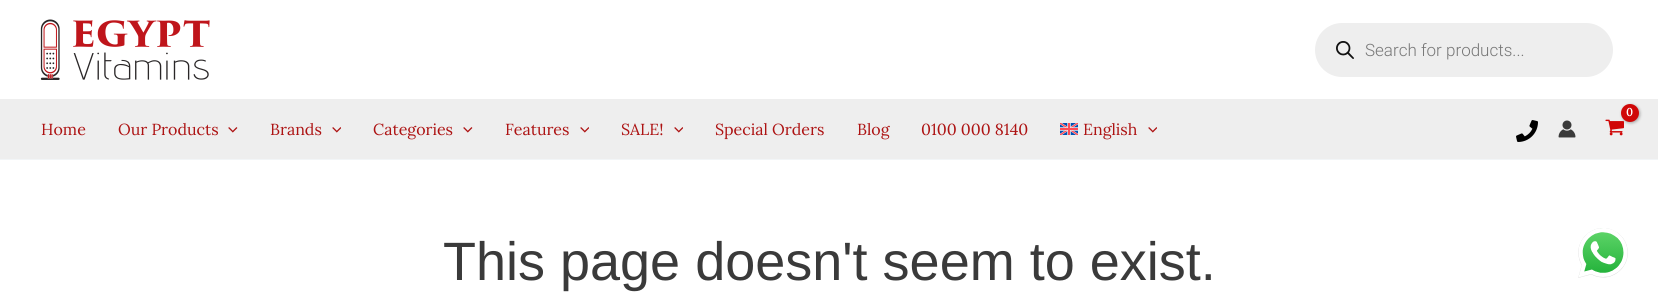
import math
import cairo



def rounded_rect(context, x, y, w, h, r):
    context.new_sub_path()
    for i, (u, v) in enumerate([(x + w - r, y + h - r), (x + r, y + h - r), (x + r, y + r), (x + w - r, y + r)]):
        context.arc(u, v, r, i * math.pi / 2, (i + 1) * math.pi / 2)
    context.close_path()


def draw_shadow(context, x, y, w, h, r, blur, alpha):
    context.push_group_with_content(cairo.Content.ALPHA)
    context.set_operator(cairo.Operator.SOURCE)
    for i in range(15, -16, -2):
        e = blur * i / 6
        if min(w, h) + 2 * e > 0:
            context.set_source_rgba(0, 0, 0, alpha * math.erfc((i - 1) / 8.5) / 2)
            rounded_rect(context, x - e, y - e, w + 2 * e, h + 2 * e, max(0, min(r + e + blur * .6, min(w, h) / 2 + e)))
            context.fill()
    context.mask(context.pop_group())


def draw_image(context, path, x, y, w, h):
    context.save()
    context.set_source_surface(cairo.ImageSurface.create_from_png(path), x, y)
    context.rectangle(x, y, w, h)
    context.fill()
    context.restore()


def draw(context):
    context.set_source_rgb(1, 1, 1)
    context.paint()
    draw_image(context, "images/1.png", 40, 19, 170, 61)
    context.set_source_rgb(238 / 255, 238 / 255, 238 / 255)
    rounded_rect(context, 1315, 23, 298, 54, 27)
    context.fill()
    draw_image(context, "images/2.png", 1336, 41, 18, 18)
    context.rectangle(0, 99, 1658, 60)
    context.fill()
    context.set_source_rgb(242 / 255, 245 / 255, 247 / 255)
    context.rectangle(0, 159, 1658, 1)
    context.fill()
    draw_image(context, "images/3.png", 1605, 119, 19, 17)
    context.set_source_rgb(0, 0, 0)
    draw_shadow(context, 1622, 105, 18, 18, 9, 1.5, 0.3)
    context.set_source_rgb(208 / 255, 7 / 255, 7 / 255)
    context.arc(1630, 113, 9, 0, 2 * math.pi)
    context.fill()
    draw_image(context, "images/4.png", 1516, 120, 22, 22)
    draw_image(context, "images/5.png", 1558, 120, 18, 18)
    draw_image(context, "images/6.png", 228, 127, 10, 6)
    draw_image(context, "images/7.png", 332, 127, 9, 6)
    draw_image(context, "images/6.png", 463, 127, 10, 6)
    draw_image(context, "images/7.png", 580, 127, 9, 6)
    draw_image(context, "images/7.png", 674, 127, 9, 6)
    draw_image(context, "images/8.png", 1060, 123, 18, 12)
    draw_image(context, "images/7.png", 1148, 127, 9, 6)
    draw_image(context, "images/9.png", 1578, 228, 50, 50)
    context.select_font_face("Roboto Light")
    context.set_font_size(17)
    context.set_source_rgb(119 / 255, 119 / 255, 119 / 255)
    context.move_to(1365, 56)
    context.show_text("Search for products...")
    context.select_font_face("Lora", cairo.FontSlant.NORMAL, cairo.FontWeight.BOLD)
    context.set_font_size(11)
    context.set_source_rgb(1, 1, 1)
    context.move_to(1626, 116)
    context.show_text("0")
    context.select_font_face("Lora")
    context.set_font_size(16)
    context.set_source_rgb(173 / 255, 19 / 255, 19 / 255)
    context.move_to(41, 135)
    context.show_text("Home")
    context.move_to(118, 135)
    context.show_text("Our Products")
    context.move_to(270, 135)
    context.show_text("Brands")
    context.move_to(373, 135)
    context.show_text("Categories")
    context.move_to(505, 135)
    context.show_text("Features")
    context.move_to(621, 135)
    context.show_text("SALE!")
    context.move_to(715, 135)
    context.show_text("Special Orders")
    context.move_to(857, 135)
    context.show_text("Blog")
    context.move_to(921, 135)
    context.show_text("0100 000 8140")
    context.move_to(1083, 135)
    context.show_text("English")
    context.select_font_face("Liberation Sans")
    context.set_font_size(54)
    context.set_source_rgb(58 / 255, 58 / 255, 58 / 255)
    context.move_to(443, 280)
    context.show_text("This page doesn't seem to exist.")


surface = cairo.ImageSurface(cairo.Format.RGB24, 1658, 308)
context = cairo.Context(surface)
options = cairo.FontOptions()
options.set_hint_metrics(cairo.HintMetrics.OFF)
options.set_hint_style(cairo.HintStyle.NONE)
context.set_font_options(options)
context.set_miter_limit(4)
draw(context)
surface.write_to_png("out.png")
